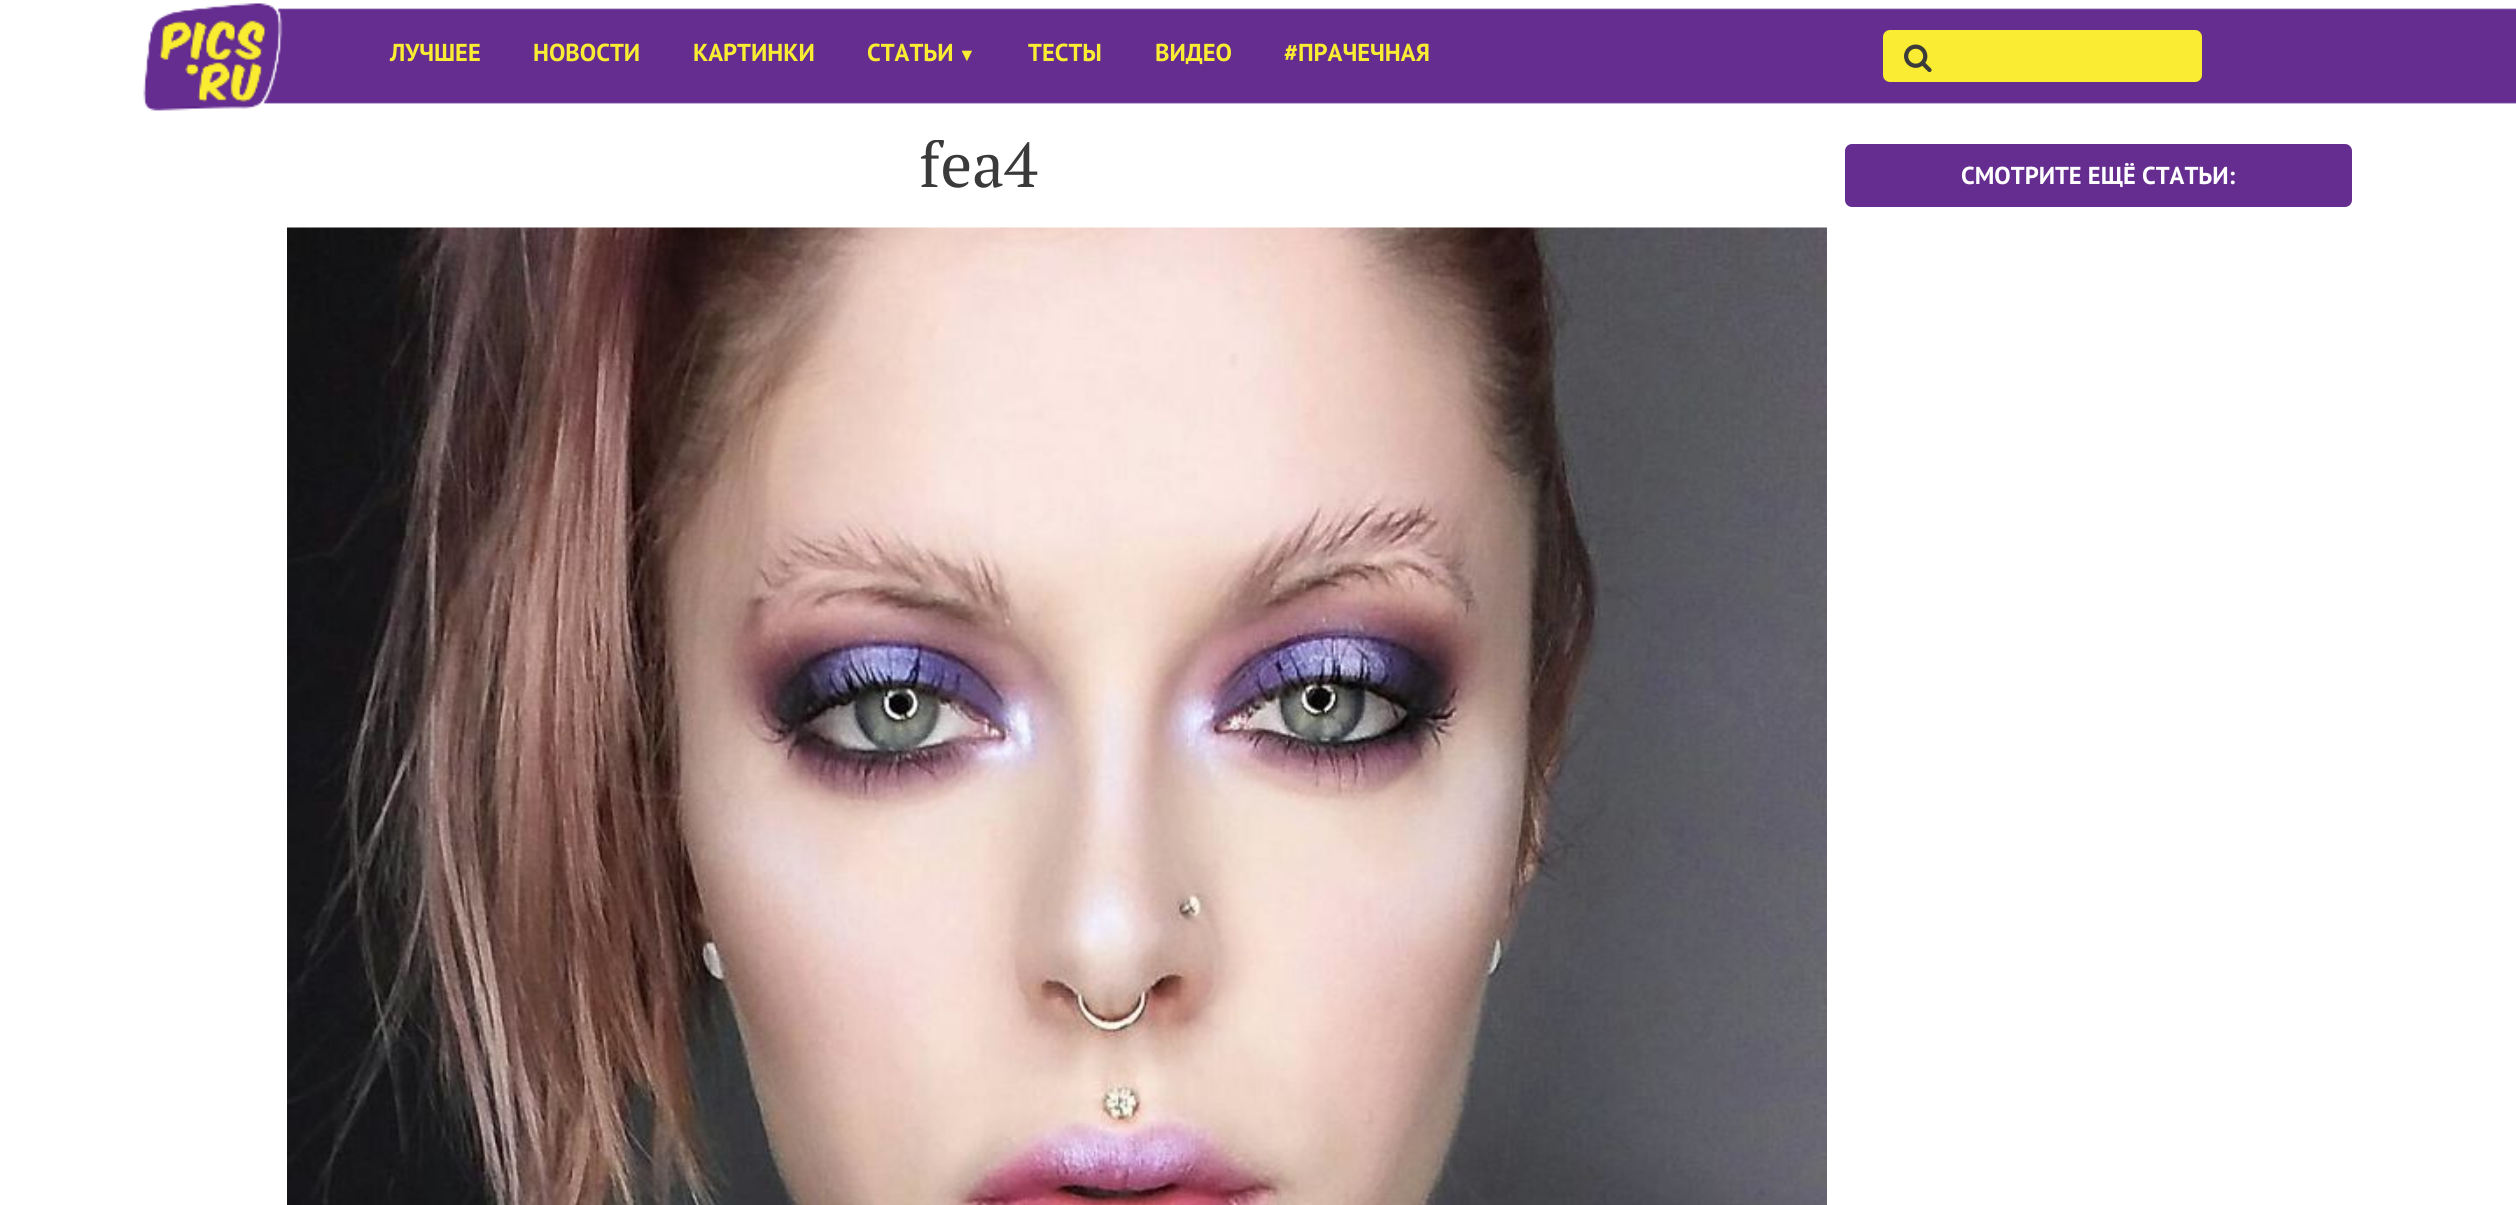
import math
import cairo



def rounded_rect(context, x, y, w, h, r):
    context.new_sub_path()
    for i, (u, v) in enumerate([(x + w - r, y + h - r), (x + r, y + h - r), (x + r, y + r), (x + w - r, y + r)]):
        context.arc(u, v, r, i * math.pi / 2, (i + 1) * math.pi / 2)
    context.close_path()


def draw_image(context, path, x, y, w, h):
    context.save()
    context.set_source_surface(cairo.ImageSurface.create_from_png(path), x, y)
    context.rectangle(x, y, w, h)
    context.fill()
    context.restore()


def draw(context):
    context.set_source_rgb(1, 1, 1)
    context.paint()
    draw_image(context, "images/1.png", 143, 3, 2373, 108)
    context.set_source_rgb(249 / 255, 236 / 255, 50 / 255)
    rounded_rect(context, 1883, 30, 319, 52, 7)
    context.fill()
    draw_image(context, "images/2.png", 1904, 44, 28, 28)
    draw_image(context, "images/3.png", 287, 227, 1540, 978)
    context.set_source_rgb(101 / 255, 45 / 255, 144 / 255)
    rounded_rect(context, 1845, 144, 507, 63, 7)
    context.fill()
    context.select_font_face("PT Sans", cairo.FontSlant.NORMAL, cairo.FontWeight.BOLD)
    context.set_font_size(24.5)
    context.set_source_rgb(249 / 255, 236 / 255, 50 / 255)
    context.move_to(390, 61)
    context.show_text("ЛУЧШЕЕ")
    context.move_to(533, 61)
    context.show_text("НОВОСТИ")
    context.move_to(693, 61)
    context.show_text("КАРТИНКИ")
    context.move_to(867, 61)
    context.show_text("СТАТЬИ")
    context.select_font_face("Liberation Sans", cairo.FontSlant.NORMAL, cairo.FontWeight.BOLD)
    context.set_font_size(18)
    context.move_to(958, 61)
    context.show_text("▼")
    context.select_font_face("PT Sans", cairo.FontSlant.NORMAL, cairo.FontWeight.BOLD)
    context.set_font_size(24.5)
    context.move_to(1028, 61)
    context.show_text("ТЕСТЫ")
    context.move_to(1155, 61)
    context.show_text("ВИДЕО")
    context.move_to(1284, 61)
    context.show_text("#ПРАЧЕЧНАЯ")
    context.select_font_face("PT Serif")
    context.set_font_size(63)
    context.set_source_rgb(58 / 255, 58 / 255, 58 / 255)
    context.move_to(919, 187)
    context.show_text("fea4")
    context.set_source_rgb(1, 1, 1)
    context.rectangle(934, 139, 8, 1)
    context.fill()
    context.select_font_face("PT Sans", cairo.FontSlant.NORMAL, cairo.FontWeight.BOLD)
    context.set_font_size(24.5)
    context.move_to(1961, 184)
    context.show_text("СМОТРИТЕ ЕЩЁ СТАТЬИ:")


surface = cairo.ImageSurface(cairo.Format.RGB24, 2516, 1205)
context = cairo.Context(surface)
options = cairo.FontOptions()
options.set_hint_metrics(cairo.HintMetrics.OFF)
options.set_hint_style(cairo.HintStyle.NONE)
context.set_font_options(options)
context.set_miter_limit(4)
draw(context)
surface.write_to_png("out.png")
